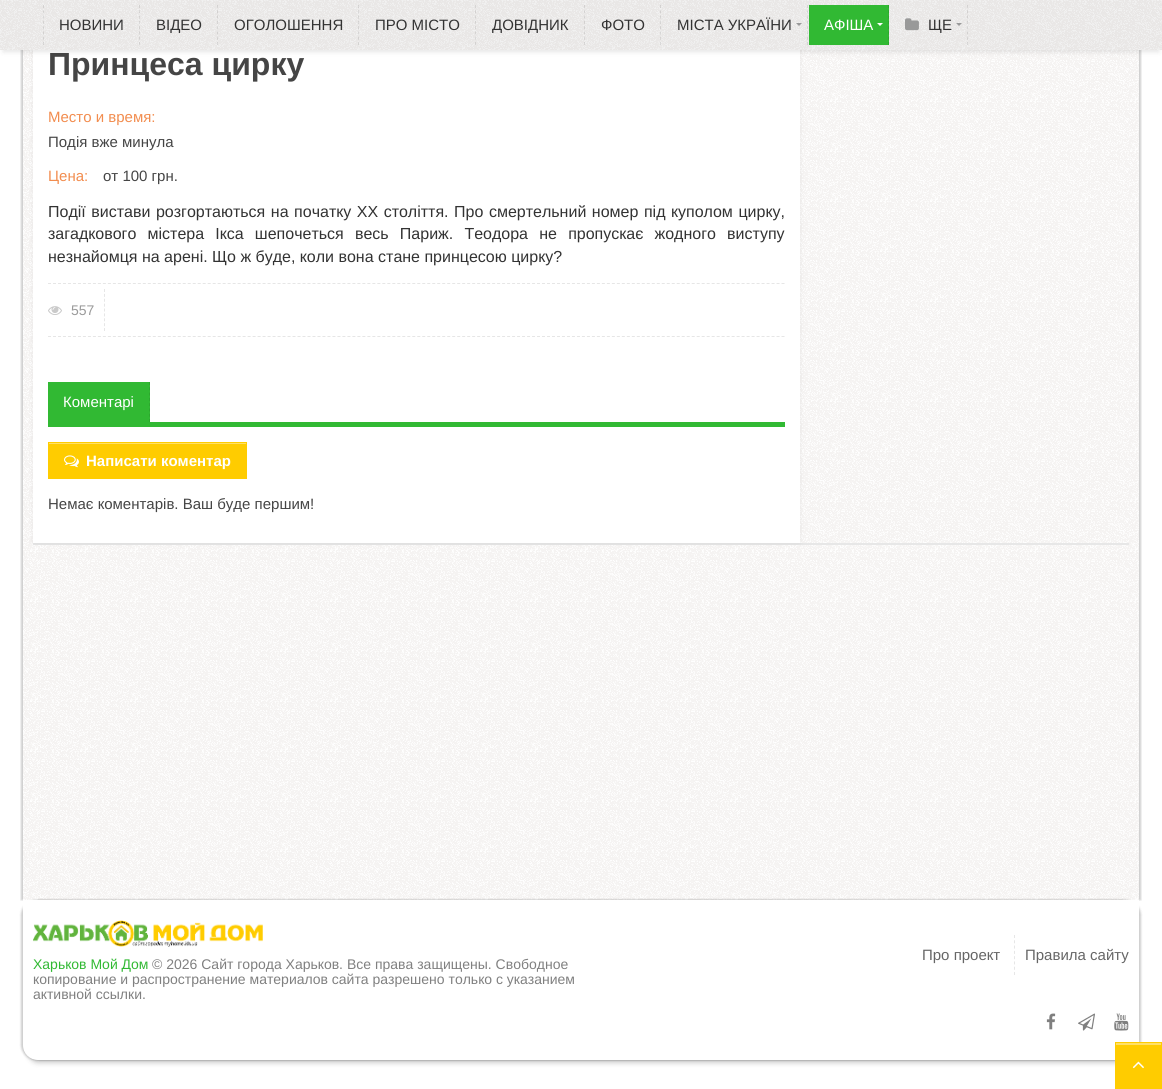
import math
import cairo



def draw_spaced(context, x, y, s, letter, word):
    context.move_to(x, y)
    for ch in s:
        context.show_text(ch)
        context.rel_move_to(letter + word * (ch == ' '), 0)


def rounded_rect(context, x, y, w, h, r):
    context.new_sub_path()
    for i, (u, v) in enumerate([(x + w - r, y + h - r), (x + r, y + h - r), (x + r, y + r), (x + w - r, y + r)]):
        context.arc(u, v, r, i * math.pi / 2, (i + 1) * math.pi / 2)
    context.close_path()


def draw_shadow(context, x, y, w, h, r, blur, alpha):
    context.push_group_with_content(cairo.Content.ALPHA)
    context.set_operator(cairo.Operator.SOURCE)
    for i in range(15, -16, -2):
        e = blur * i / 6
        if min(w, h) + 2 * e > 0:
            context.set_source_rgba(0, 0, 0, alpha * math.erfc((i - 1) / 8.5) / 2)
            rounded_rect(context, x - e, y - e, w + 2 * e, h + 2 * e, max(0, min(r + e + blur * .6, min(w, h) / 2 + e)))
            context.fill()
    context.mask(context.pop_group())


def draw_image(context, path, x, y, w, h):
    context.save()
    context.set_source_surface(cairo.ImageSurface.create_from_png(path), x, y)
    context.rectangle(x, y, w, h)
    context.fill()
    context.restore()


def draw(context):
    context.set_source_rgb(1, 1, 1)
    context.paint()
    context.save()
    context.rectangle(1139, 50, 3, 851)
    context.clip()
    context.set_source_rgb(0, 0, 0)
    draw_shadow(context, 25, -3, 1116, 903, 0, 1, 0.2)
    context.restore()
    context.save()
    context.rectangle(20, 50, 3, 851)
    context.clip()
    context.set_source_rgb(0, 0, 0)
    draw_shadow(context, 21, -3, 1116, 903, 0, 1, 0.2)
    context.restore()
    draw_image(context, "images/3.png", 23, 50, 1116, 850)
    context.set_source_rgb(231 / 255, 231 / 255, 231 / 255)
    context.rectangle(33, 543, 1096, 2)
    context.fill()
    context.set_source_rgb(0, 0, 0)
    draw_shadow(context, 33, -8, 767, 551, 0, 2.5, 0.07)
    context.set_source_rgb(1, 1, 1)
    context.rectangle(33, 50, 767, 493)
    context.fill()
    context.set_source_rgb(0, 0, 0)
    draw_shadow(context, 3, 8, 1156, 44, 0, 2.5, 0.1)
    context.set_source_rgb(242 / 255, 242 / 255, 242 / 255)
    context.rectangle(0, 0, 1162, 50)
    context.fill()
    draw_image(context, "images/1.png", 0, 0, 1162, 50)
    context.new_path()
    context.move_to(139.5, 5)
    context.line_to(139.5, 45)
    context.set_source_rgba(0, 0, 0, 0.1)
    context.set_line_width(1)
    context.set_dash([3, 2.29])
    context.stroke()
    context.new_path()
    context.move_to(43.5, 5)
    context.line_to(43.5, 45)
    context.stroke()
    context.new_path()
    context.move_to(217.5, 5)
    context.line_to(217.5, 45)
    context.stroke()
    context.new_path()
    context.move_to(358.5, 5)
    context.line_to(358.5, 45)
    context.stroke()
    context.new_path()
    context.move_to(475.5, 5)
    context.line_to(475.5, 45)
    context.stroke()
    context.new_path()
    context.move_to(584.5, 5)
    context.line_to(584.5, 45)
    context.stroke()
    context.new_path()
    context.move_to(660.5, 5)
    context.line_to(660.5, 45)
    context.stroke()
    context.new_path()
    context.move_to(807.5, 5)
    context.line_to(807.5, 45)
    context.stroke()
    context.set_source_rgb(153 / 255, 153 / 255, 153 / 255)
    context.new_path()
    context.move_to(796, 23)
    context.line_to(802, 23)
    context.line_to(799, 26)
    context.close_path()
    context.fill()
    context.set_source_rgb(49 / 255, 185 / 255, 51 / 255)
    context.rectangle(809, 5, 80, 40)
    context.fill()
    context.new_path()
    context.move_to(888.5, 5)
    context.line_to(888.5, 45)
    context.set_source_rgb(44 / 255, 167 / 255, 46 / 255)
    context.stroke()
    context.set_source_rgb(1, 1, 1)
    context.new_path()
    context.move_to(877, 23)
    context.line_to(883, 23)
    context.line_to(880, 26)
    context.close_path()
    context.fill()
    context.new_path()
    context.move_to(967.5, 5)
    context.line_to(967.5, 45)
    context.set_source_rgba(0, 0, 0, 0.1)
    context.stroke()
    draw_image(context, "images/2.png", 905, 18, 14, 13)
    context.set_source_rgb(153 / 255, 153 / 255, 153 / 255)
    context.new_path()
    context.move_to(956, 23)
    context.line_to(962, 23)
    context.line_to(959, 26)
    context.close_path()
    context.fill()
    context.new_path()
    context.move_to(48, 283.5)
    context.line_to(785, 283.5)
    context.set_source_rgb(230 / 255, 230 / 255, 230 / 255)
    context.set_dash([3, 1.99])
    context.stroke()
    context.new_path()
    context.move_to(48, 336.5)
    context.line_to(785, 336.5)
    context.stroke()
    context.new_path()
    context.move_to(104.5, 289)
    context.line_to(104.5, 331)
    context.set_dash([3, 1.88])
    context.stroke()
    draw_image(context, "images/4.png", 48, 306, 14, 9)
    context.set_source_rgb(49 / 255, 185 / 255, 51 / 255)
    context.rectangle(48, 422, 737, 5)
    context.fill()
    context.rectangle(48, 382, 102, 40)
    context.fill()
    context.new_path()
    context.move_to(149.5, 382)
    context.line_to(149.5, 422)
    context.set_source_rgb(44 / 255, 167 / 255, 46 / 255)
    context.set_dash([3, 2.29])
    context.stroke()
    context.set_source_rgb(1, 204 / 255, 0)
    context.rectangle(48, 442, 199, 37)
    context.fill()
    context.set_source_rgb(1, 224 / 255, 102 / 255)
    context.rectangle(49, 443, 197, 1)
    context.fill()
    draw_image(context, "images/5.png", 64, 455, 15, 13)
    context.set_source_rgb(0, 0, 0)
    draw_shadow(context, 25, 900, 1116, 160, 15, 1, 0.2)
    draw_shadow(context, 21, 900, 1116, 160, 15, 1, 0.2)
    draw_shadow(context, 28, 913, 1106, 150, 10, 2.5, 0.2)
    context.set_source_rgb(1, 1, 1)
    context.new_path()
    context.move_to(23, 900)
    context.line_to(1139, 900)
    context.line_to(1139, 1045)
    context.curve_to(1139, 1053.5, 1132.5, 1060, 1124, 1060)
    context.line_to(38, 1060)
    context.curve_to(29.5, 1060, 23, 1053.5, 23, 1045)
    context.close_path()
    context.fill()
    context.new_path()
    context.move_to(1014.5, 935)
    context.line_to(1014.5, 975)
    context.set_source_rgb(230 / 255, 230 / 255, 230 / 255)
    context.stroke()
    draw_image(context, "images/6.png", 1046, 1013, 10, 17)
    draw_image(context, "images/7.png", 1078, 1013, 17, 18)
    draw_image(context, "images/8.png", 1114, 1013, 15, 18)
    draw_image(context, "images/9.png", 33, 920, 230, 27)
    context.set_source_rgb(1, 204 / 255, 0)
    context.rectangle(1115, 1042, 47, 47)
    context.fill()
    context.set_source_rgb(1, 224 / 255, 102 / 255)
    context.rectangle(1116, 1043, 45, 2)
    context.fill()
    draw_image(context, "images/10.png", 1132, 1061, 12, 8)
    context.select_font_face("Liberation Sans")
    context.set_font_size(15)
    context.set_source_rgb(51 / 255, 51 / 255, 51 / 255)
    context.move_to(59, 30)
    context.show_text("НОВИНИ")
    context.move_to(156, 30)
    context.show_text("ВІДЕО")
    context.move_to(234, 30)
    context.show_text("ОГОЛОШЕННЯ")
    context.move_to(375, 30)
    context.show_text("ПРО МІСТО")
    context.move_to(492, 30)
    context.show_text("ДОВІДНИК")
    context.move_to(601, 30)
    context.show_text("ФОТО")
    context.move_to(677, 30)
    context.show_text("МІСТА УКРАЇНИ")
    context.set_source_rgb(1, 1, 1)
    context.move_to(824, 30)
    context.show_text("АФІША")
    context.set_source_rgb(51 / 255, 51 / 255, 51 / 255)
    context.move_to(928, 30)
    context.show_text("ЩЕ")
    context.select_font_face("Liberation Sans", cairo.FontSlant.NORMAL, cairo.FontWeight.BOLD)
    context.set_font_size(32)
    context.set_source_rgb(69 / 255, 69 / 255, 69 / 255)
    context.move_to(48, 75)
    context.show_text("Принцеса цирку")
    context.select_font_face("Liberation Sans")
    context.set_font_size(15)
    context.set_source_rgb(242 / 255, 141 / 255, 79 / 255)
    context.move_to(48, 122)
    context.show_text("Место и время:")
    context.set_source_rgb(69 / 255, 69 / 255, 69 / 255)
    context.move_to(48, 147)
    context.show_text("Подія вже минула")
    context.set_source_rgb(242 / 255, 141 / 255, 79 / 255)
    context.move_to(48, 181)
    context.show_text("Цена:")
    context.set_source_rgb(69 / 255, 69 / 255, 69 / 255)
    context.move_to(103, 181)
    context.show_text("от 100 грн.")
    context.set_font_size(16)
    context.set_source_rgb(51 / 255, 51 / 255, 51 / 255)
    draw_spaced(context, 48, 217, "Події вистави розгортаються на початку ХХ століття. Про смертельний номер під куполом цирку,", 0, 1.1)
    draw_spaced(context, 48, 239, "загадкового містера Ікса шепочеться весь Париж. Теодора не пропускає жодного виступу", 0, 6.75)
    context.move_to(48, 262)
    context.show_text("незнайомця на арені. Що ж буде, коли вона стане принцесою цирку?")
    context.set_font_size(14)
    context.set_source_rgb(154 / 255, 154 / 255, 154 / 255)
    context.move_to(71, 315)
    context.show_text("557")
    context.set_font_size(15)
    context.set_source_rgb(1, 1, 1)
    context.move_to(63, 407)
    context.show_text("Коментарі")
    context.select_font_face("Liberation Sans", cairo.FontSlant.NORMAL, cairo.FontWeight.BOLD)
    context.move_to(86, 466)
    context.show_text("Написати коментар")
    context.select_font_face("Liberation Sans")
    context.set_source_rgb(69 / 255, 69 / 255, 69 / 255)
    context.move_to(48, 509)
    context.show_text("Немає коментарів. Ваш буде першим!")
    context.set_source_rgb(102 / 255, 102 / 255, 102 / 255)
    context.move_to(922, 960)
    context.show_text("Про проект")
    context.move_to(1025, 960)
    context.show_text("Правила сайту")
    context.set_font_size(14)
    context.set_source_rgb(49 / 255, 185 / 255, 51 / 255)
    context.move_to(33, 969)
    context.show_text("Харьков Мой Дом")
    context.set_source_rgb(128 / 255, 128 / 255, 128 / 255)
    context.move_to(152, 969)
    context.show_text("© 2026 Сайт города Харьков. Все права защищены. Свободное")
    context.move_to(33, 984)
    context.show_text("копирование и распространение материалов сайта разрешено только с указанием")
    context.move_to(33, 999)
    context.show_text("активной ссылки.")


surface = cairo.ImageSurface(cairo.Format.RGB24, 1162, 1089)
context = cairo.Context(surface)
options = cairo.FontOptions()
options.set_hint_metrics(cairo.HintMetrics.OFF)
options.set_hint_style(cairo.HintStyle.NONE)
context.set_font_options(options)
context.set_miter_limit(4)
draw(context)
surface.write_to_png("out.png")
